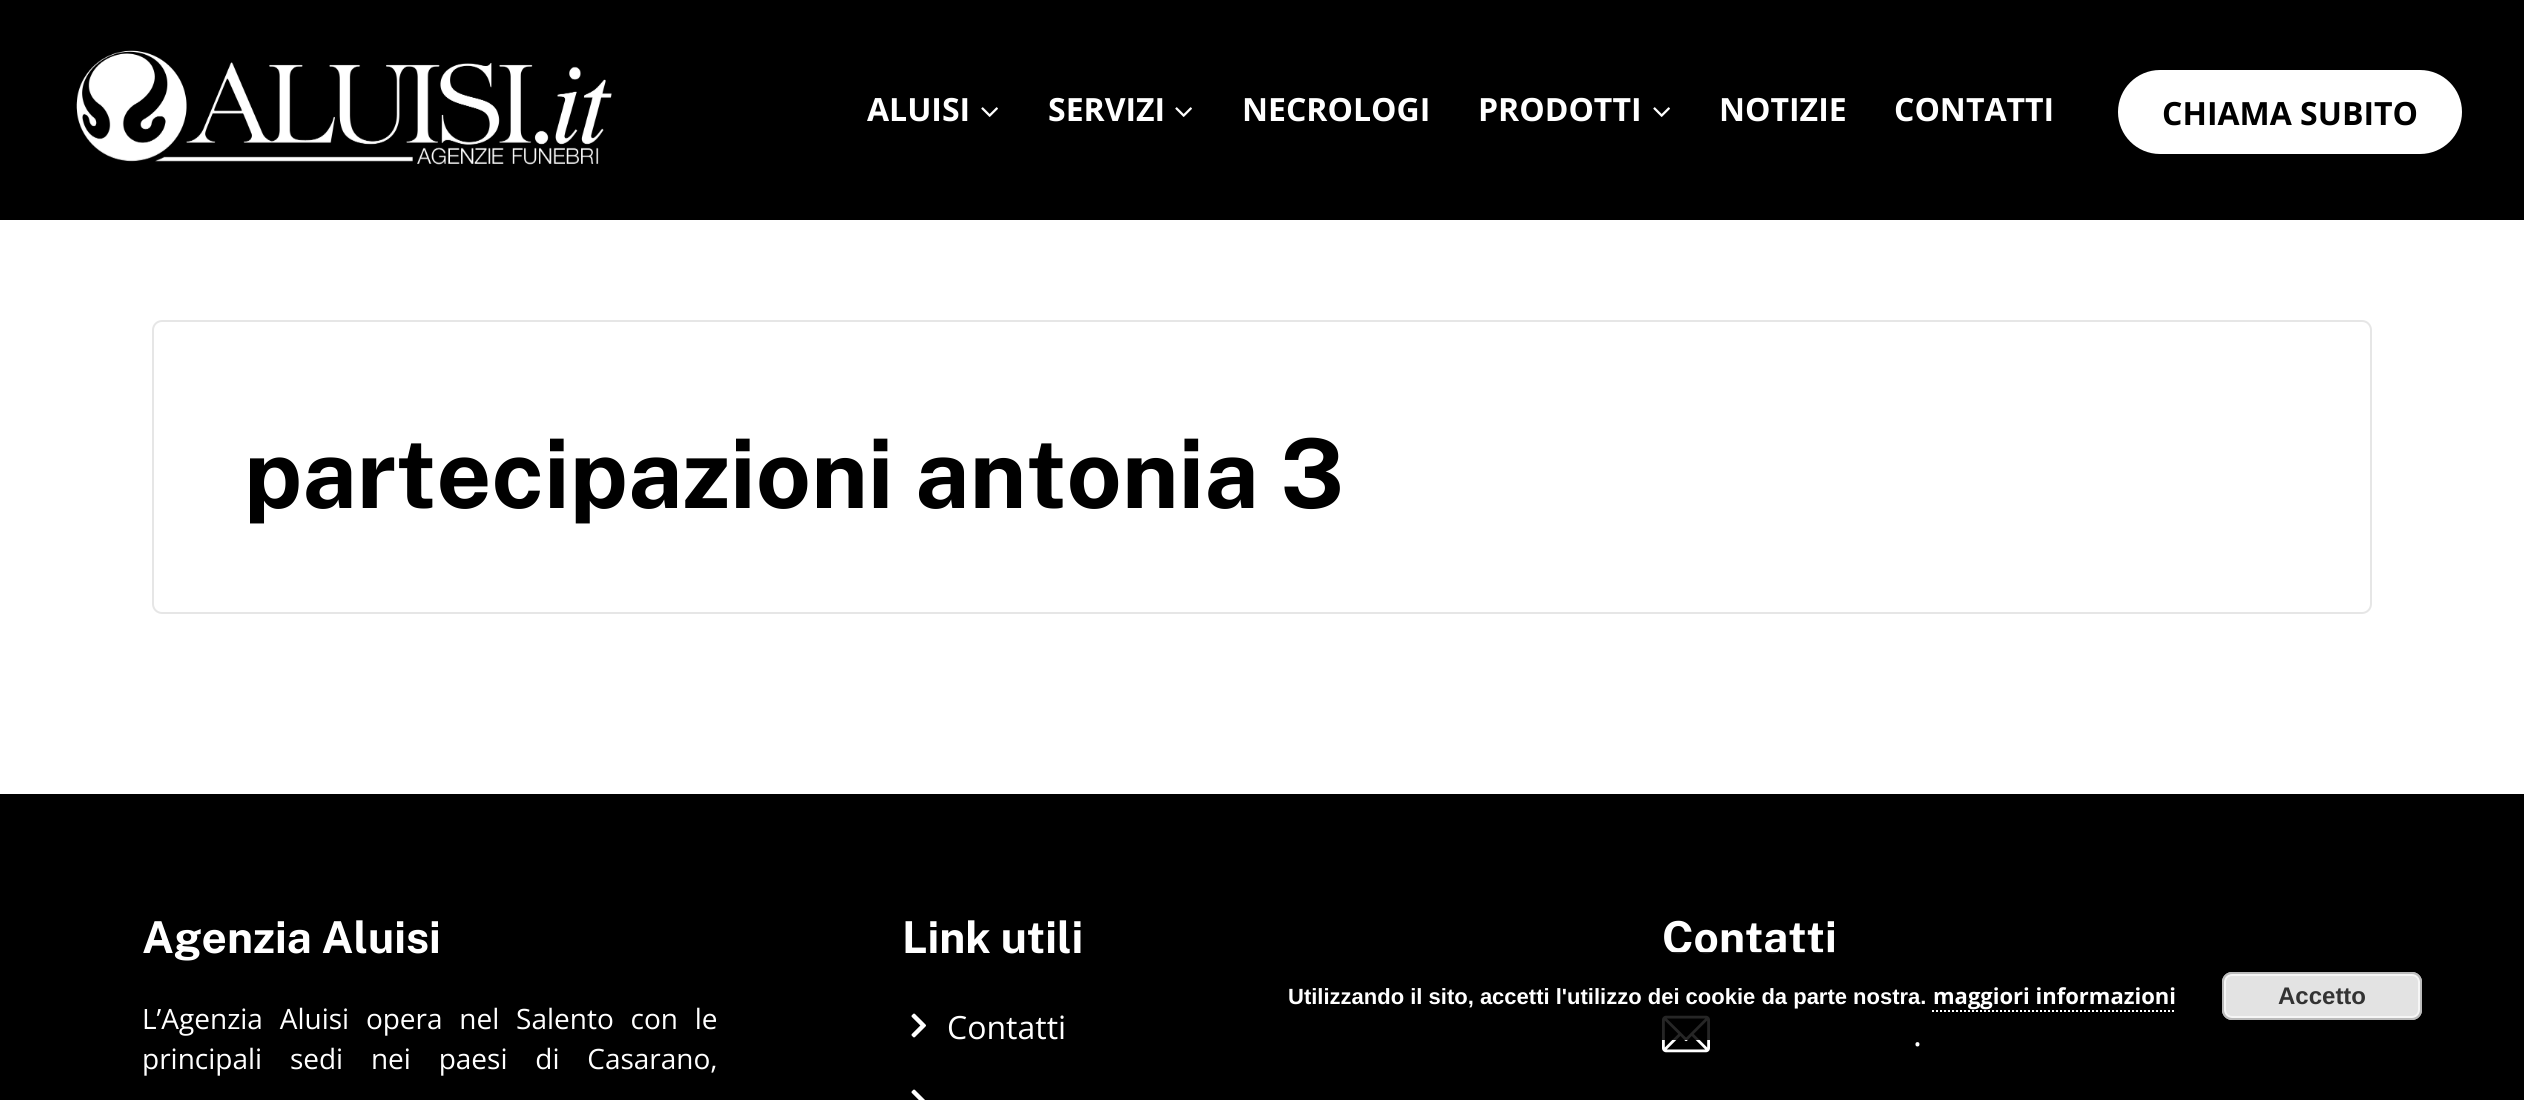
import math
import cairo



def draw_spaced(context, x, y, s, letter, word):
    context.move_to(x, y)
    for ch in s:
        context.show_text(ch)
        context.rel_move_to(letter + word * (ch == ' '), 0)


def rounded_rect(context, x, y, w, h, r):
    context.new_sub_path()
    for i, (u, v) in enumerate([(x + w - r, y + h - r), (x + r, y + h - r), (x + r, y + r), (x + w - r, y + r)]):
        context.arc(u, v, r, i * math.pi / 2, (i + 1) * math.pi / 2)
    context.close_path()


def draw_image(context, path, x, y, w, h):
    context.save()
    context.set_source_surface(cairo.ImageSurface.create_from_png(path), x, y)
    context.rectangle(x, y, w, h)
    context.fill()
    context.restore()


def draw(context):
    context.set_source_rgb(1, 1, 1)
    context.paint()
    context.set_source_rgb(0, 0, 0)
    context.rectangle(0, 0, 2524, 220)
    context.fill()
    draw_image(context, "images/1.png", 76, 50, 536, 115)
    draw_image(context, "images/2.png", 981, 107, 17, 10)
    draw_image(context, "images/2.png", 1175, 107, 17, 10)
    draw_image(context, "images/2.png", 1653, 107, 17, 10)
    context.set_source_rgb(1, 1, 1)
    rounded_rect(context, 2120, 72, 340, 80, 40)
    context.fill_preserve()
    context.set_line_width(4)
    context.stroke()
    rounded_rect(context, 153, 321, 2218, 292, 9)
    context.set_source_rgb(230 / 255, 230 / 255, 230 / 255)
    context.set_line_width(2)
    context.stroke()
    context.set_source_rgb(0, 0, 0)
    context.rectangle(0, 794, 2524, 306)
    context.fill()
    draw_image(context, "images/3.png", 911, 1013, 15, 25)
    draw_image(context, "images/4.png", 911, 1089, 14, 11)
    draw_image(context, "images/5.png", 1662, 1015, 48, 38)
    context.select_font_face("Open Sans", cairo.FontSlant.NORMAL, cairo.FontWeight.BOLD)
    context.set_font_size(32)
    context.set_source_rgb(1, 1, 1)
    context.move_to(867, 121)
    context.show_text("ALUISI")
    context.move_to(1048, 121)
    context.show_text("SERVIZI")
    context.move_to(1242, 121)
    context.show_text("NECROLOGI")
    context.move_to(1478, 121)
    context.show_text("PRODOTTI")
    context.move_to(1719, 121)
    context.show_text("NOTIZIE")
    context.move_to(1894, 121)
    context.show_text("CONTATTI")
    context.set_source_rgb(0, 0, 0)
    context.move_to(2162, 125)
    context.show_text("CHIAMA SUBITO")
    context.select_font_face("Public Sans", cairo.FontSlant.NORMAL, cairo.FontWeight.BOLD)
    context.set_font_size(96)
    context.move_to(244, 508)
    context.show_text("partecipazioni antonia 3")
    context.set_font_size(44)
    context.set_source_rgb(1, 1, 1)
    context.move_to(142, 953)
    context.show_text("Agenzia Aluisi")
    context.select_font_face("Open Sans")
    context.set_font_size(28)
    draw_spaced(context, 142, 1029, "L’Agenzia Aluisi opera nel Salento con le", 0, 9.5)
    draw_spaced(context, 142, 1069, "principali sedi nei paesi di Casarano,", 0, 20.5)
    context.select_font_face("Public Sans", cairo.FontSlant.NORMAL, cairo.FontWeight.BOLD)
    context.set_font_size(44)
    context.move_to(902, 953)
    context.show_text("Link utili")
    context.select_font_face("Open Sans")
    context.set_font_size(32)
    context.move_to(947, 1039)
    context.show_text("Contatti")
    context.select_font_face("Public Sans", cairo.FontSlant.NORMAL, cairo.FontWeight.BOLD)
    context.set_font_size(44)
    context.move_to(1662, 953)
    context.show_text("Contatti")
    context.select_font_face("Open Sans")
    context.set_font_size(34)
    context.move_to(1913, 1046)
    context.show_text(".")
    context.set_source_rgba(0, 0, 0, 0.85)
    rounded_rect(context, 1246, 952, 1218, 88, 10)
    context.fill()
    context.select_font_face("Liberation Sans", cairo.FontSlant.NORMAL, cairo.FontWeight.BOLD)
    context.set_font_size(22)
    context.set_source_rgb(1, 1, 1)
    context.move_to(1288, 1004)
    context.show_text("Utilizzando il sito, accetti l'utilizzo dei cookie da parte nostra.")
    context.select_font_face("Open Sans", cairo.FontSlant.NORMAL, cairo.FontWeight.BOLD)
    context.move_to(1933, 1004)
    context.show_text("maggiori informazioni")
    context.new_path()
    context.move_to(1932, 1011)
    context.line_to(2176, 1011)
    context.set_dash([2, 2])
    context.stroke()
    context.set_source_rgb(227 / 255, 227 / 255, 227 / 255)
    rounded_rect(context, 2222, 972, 200, 48, 10)
    context.fill()
    rounded_rect(context, 2225, 975, 194, 42, 7)
    context.set_source_rgb(246 / 255, 246 / 255, 246 / 255)
    context.set_dash([])
    context.stroke()
    rounded_rect(context, 2223, 973, 198, 46, 9)
    context.set_source_rgb(187 / 255, 187 / 255, 187 / 255)
    context.stroke()
    context.select_font_face("Liberation Sans", cairo.FontSlant.NORMAL, cairo.FontWeight.BOLD)
    context.set_font_size(24)
    context.set_source_rgb(51 / 255, 51 / 255, 51 / 255)
    context.move_to(2278, 1004)
    context.show_text("Accetto")


surface = cairo.ImageSurface(cairo.Format.RGB24, 2524, 1100)
context = cairo.Context(surface)
options = cairo.FontOptions()
options.set_hint_metrics(cairo.HintMetrics.OFF)
options.set_hint_style(cairo.HintStyle.NONE)
context.set_font_options(options)
context.set_miter_limit(4)
draw(context)
surface.write_to_png("out.png")
